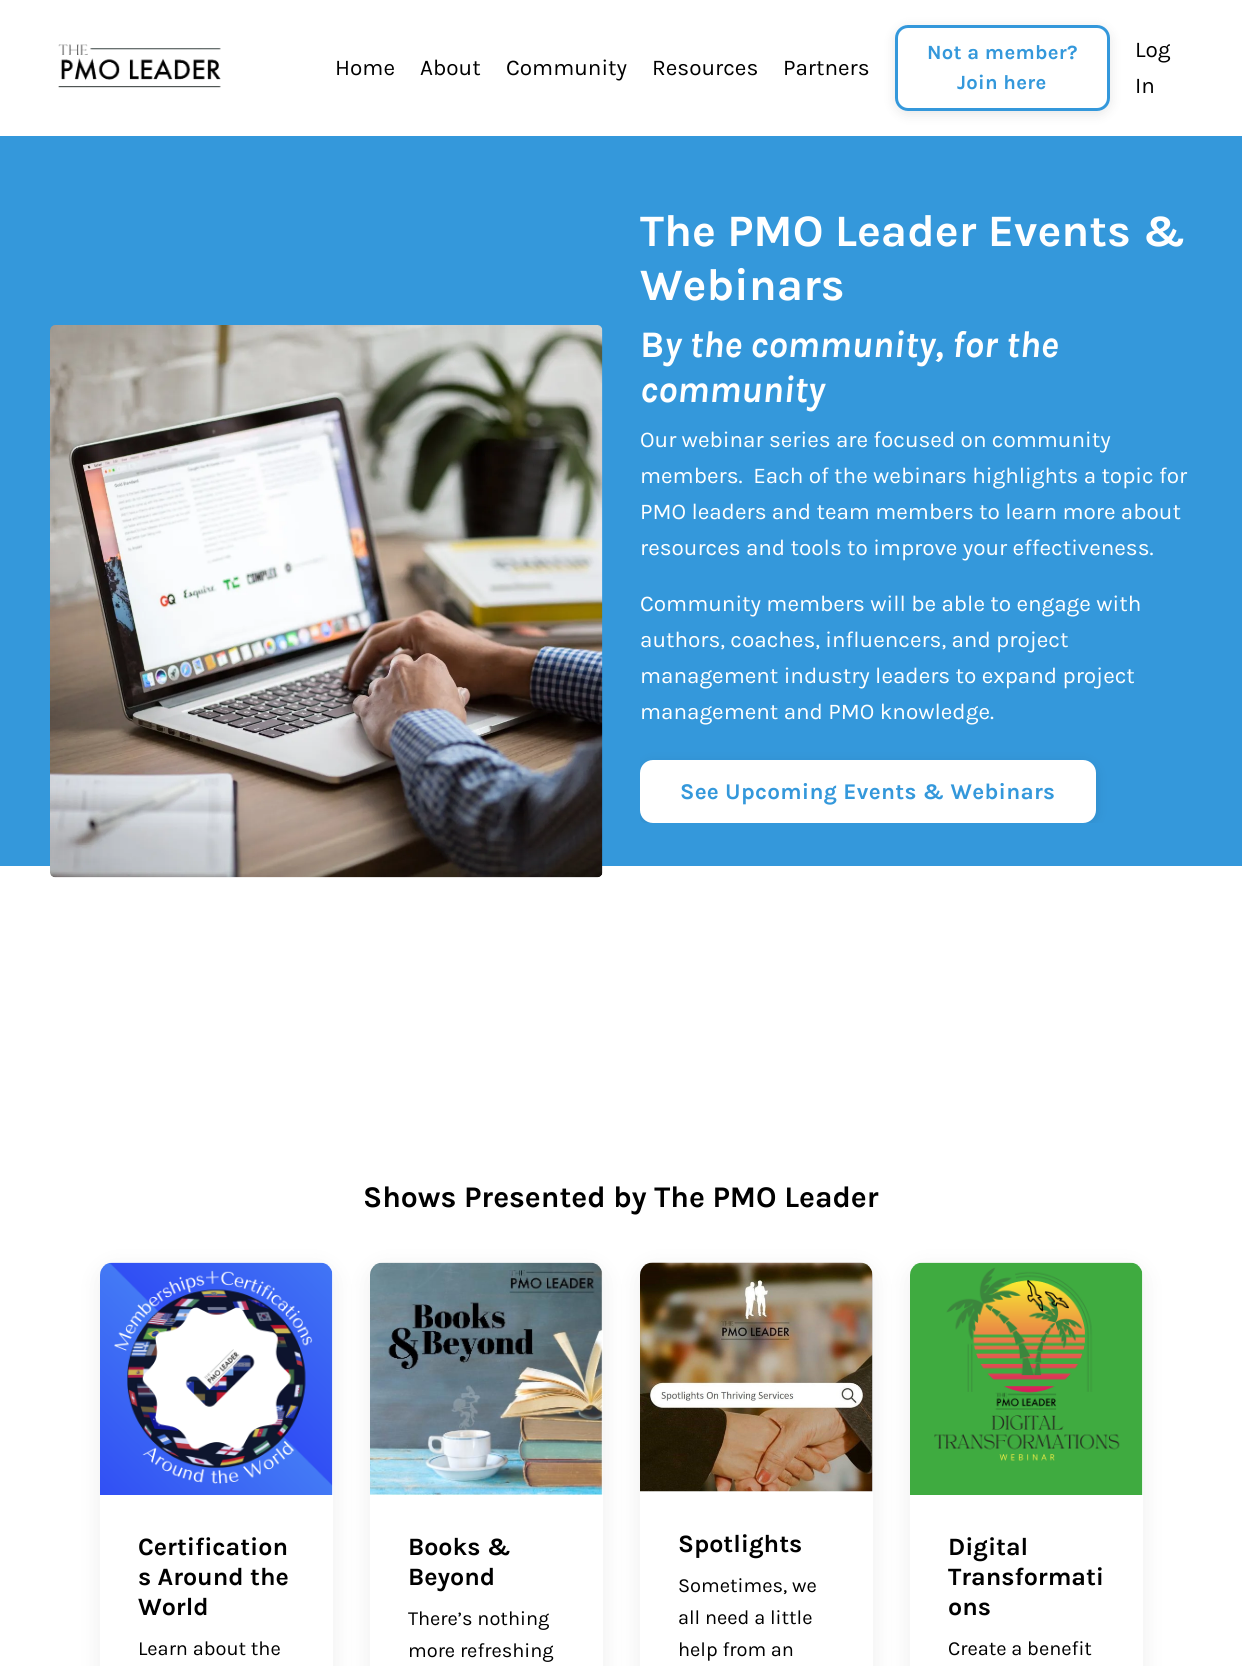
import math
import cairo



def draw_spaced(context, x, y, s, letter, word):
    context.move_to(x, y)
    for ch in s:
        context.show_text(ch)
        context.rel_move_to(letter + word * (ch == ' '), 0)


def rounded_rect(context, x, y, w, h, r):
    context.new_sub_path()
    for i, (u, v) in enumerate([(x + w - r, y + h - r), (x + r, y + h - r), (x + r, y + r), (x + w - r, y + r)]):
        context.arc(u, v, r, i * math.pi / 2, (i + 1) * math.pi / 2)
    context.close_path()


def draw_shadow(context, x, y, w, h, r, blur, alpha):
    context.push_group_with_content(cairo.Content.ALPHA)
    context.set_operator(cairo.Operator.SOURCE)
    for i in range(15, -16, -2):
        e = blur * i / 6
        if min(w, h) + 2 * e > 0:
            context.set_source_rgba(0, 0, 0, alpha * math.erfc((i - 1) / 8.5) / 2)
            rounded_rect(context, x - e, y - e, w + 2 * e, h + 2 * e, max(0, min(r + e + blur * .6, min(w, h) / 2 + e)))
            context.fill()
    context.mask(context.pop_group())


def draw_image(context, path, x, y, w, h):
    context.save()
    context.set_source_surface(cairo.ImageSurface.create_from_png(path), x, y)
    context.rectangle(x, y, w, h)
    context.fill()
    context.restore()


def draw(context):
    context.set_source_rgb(1, 1, 1)
    context.paint()
    draw_image(context, "images/1.png", 58, 44, 163, 44)
    context.save()
    context.set_fill_rule(cairo.FillRule.EVEN_ODD)
    context.new_path()
    context.move_to(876, 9)
    context.line_to(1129, 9)
    context.line_to(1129, 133)
    context.line_to(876, 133)
    context.close_path()
    context.move_to(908, 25)
    context.line_to(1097, 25)
    context.curve_to(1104, 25, 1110, 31, 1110, 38)
    context.line_to(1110, 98)
    context.curve_to(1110, 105, 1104, 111, 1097, 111)
    context.line_to(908, 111)
    context.curve_to(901, 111, 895, 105, 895, 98)
    context.line_to(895, 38)
    context.curve_to(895, 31, 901, 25, 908, 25)
    context.close_path()
    context.clip()
    context.set_source_rgb(0, 0, 0)
    draw_shadow(context, 895, 28, 215, 86, 13, 6, 0.1)
    context.restore()
    rounded_rect(context, 896.5, 26.5, 212, 83, 11.5)
    context.set_source_rgb(52 / 255, 152 / 255, 219 / 255)
    context.set_line_width(3)
    context.stroke()
    context.rectangle(0, 136, 1242, 730)
    context.fill()
    draw_image(context, "images/2.png", 50, 325, 553, 553)
    context.save()
    rounded_rect(context, 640, 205, 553, 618, 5)
    context.clip()
    context.set_source_rgb(0, 0, 0)
    draw_shadow(context, 640, 763, 456, 62, 13, 6, 0.1)
    context.restore()
    context.set_source_rgb(1, 1, 1)
    rounded_rect(context, 641.5, 761.5, 453, 60, 11.5)
    context.fill_preserve()
    context.stroke()
    context.set_source_rgb(0, 0, 0)
    draw_shadow(context, 100, 1268, 233, 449, 13, 12.5, 0.07)
    context.set_source_rgb(1, 1, 1)
    rounded_rect(context, 100, 1263, 233, 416, 13)
    context.fill()
    context.set_source_rgb(0, 0, 0)
    draw_shadow(context, 370, 1268, 233, 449, 13, 12.5, 0.07)
    draw_image(context, "images/3.png", 100, 1262, 233, 233)
    context.set_source_rgb(1, 1, 1)
    rounded_rect(context, 370, 1263, 233, 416, 13)
    context.fill()
    context.set_source_rgb(0, 0, 0)
    draw_shadow(context, 640, 1268, 233, 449, 13, 12.5, 0.07)
    draw_image(context, "images/4.png", 370, 1262, 233, 233)
    context.set_source_rgb(1, 1, 1)
    rounded_rect(context, 640, 1263, 233, 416, 13)
    context.fill()
    context.set_source_rgb(0, 0, 0)
    draw_shadow(context, 910, 1268, 233, 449, 13, 12.5, 0.07)
    draw_image(context, "images/5.png", 640, 1262, 233, 230)
    context.set_source_rgb(1, 1, 1)
    rounded_rect(context, 910, 1263, 233, 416, 13)
    context.fill()
    draw_image(context, "images/6.png", 910, 1262, 233, 233)
    context.select_font_face("Karla")
    context.set_font_size(22.5)
    context.set_source_rgb(0, 0, 0)
    context.move_to(335, 75)
    context.show_text("Home")
    context.move_to(420, 75)
    context.show_text("About")
    context.move_to(506, 75)
    context.show_text("Community")
    context.move_to(652, 75)
    context.show_text("Resources")
    context.move_to(783, 75)
    context.show_text("Partners")
    context.select_font_face("Karla", cairo.FontSlant.NORMAL, cairo.FontWeight.BOLD)
    context.set_font_size(20.25)
    context.set_source_rgb(52 / 255, 152 / 255, 219 / 255)
    draw_spaced(context, 927, 59, "Not a member?", 0.3, 0)
    draw_spaced(context, 957, 89, "Join here", 0.3, 0)
    context.select_font_face("Karla")
    context.set_font_size(22.5)
    context.set_source_rgb(0, 0, 0)
    context.move_to(1135, 57)
    context.show_text("Log")
    context.move_to(1135, 93)
    context.show_text("In")
    context.select_font_face("Karla", cairo.FontSlant.NORMAL, cairo.FontWeight.BOLD)
    context.set_font_size(45)
    context.set_source_rgb(1, 1, 1)
    context.move_to(640, 246)
    context.show_text("The PMO Leader Events &")
    context.move_to(640, 300)
    context.show_text("Webinars")
    context.set_font_size(37.5)
    context.move_to(640, 357)
    context.show_text("B")
    context.select_font_face("Karla", cairo.FontSlant.ITALIC, cairo.FontWeight.BOLD)
    context.move_to(664, 357)
    context.show_text("y the community, for the")
    context.move_to(640, 402)
    context.show_text("community")
    context.select_font_face("Karla")
    context.set_font_size(22.5)
    context.move_to(640, 447)
    context.show_text("Our webinar series are focused on community")
    context.move_to(640, 483)
    context.show_text("members.  Each of the webinars highlights a topic for")
    context.move_to(640, 519)
    context.show_text("PMO leaders and team members to learn more about")
    context.move_to(640, 555)
    context.show_text("resources and tools to improve your effectiveness.")
    context.move_to(640, 611)
    context.show_text("Community members will be able to engage with")
    context.move_to(640, 647)
    context.show_text("authors, coaches, influencers, and project")
    context.move_to(640, 683)
    context.show_text("management industry leaders to expand project")
    context.move_to(640, 719)
    context.show_text("management and PMO knowledge.")
    context.select_font_face("Karla", cairo.FontSlant.NORMAL, cairo.FontWeight.BOLD)
    context.set_source_rgb(52 / 255, 152 / 255, 219 / 255)
    draw_spaced(context, 680, 799, "See Upcoming Events & Webinars", 0.3, 0)
    context.set_font_size(30)
    context.set_source_rgb(0, 0, 0)
    context.move_to(363, 1207)
    context.show_text("Shows Presented by The PMO Leader")
    context.set_font_size(25)
    context.move_to(138, 1555)
    context.show_text("Certification")
    context.move_to(138, 1585)
    context.show_text("s Around the")
    context.move_to(138, 1615)
    context.show_text("World")
    context.select_font_face("Karla")
    context.set_font_size(20)
    context.move_to(138, 1655)
    context.show_text("Learn about the")
    context.select_font_face("Karla", cairo.FontSlant.NORMAL, cairo.FontWeight.BOLD)
    context.set_font_size(25)
    context.move_to(408, 1555)
    context.show_text("Books &")
    context.move_to(408, 1585)
    context.show_text("Beyond")
    context.select_font_face("Karla")
    context.set_font_size(20)
    context.move_to(408, 1625)
    context.show_text("There’s nothing")
    context.move_to(408, 1657)
    context.show_text("more refreshing")
    context.select_font_face("Karla", cairo.FontSlant.NORMAL, cairo.FontWeight.BOLD)
    context.set_font_size(25)
    context.move_to(678, 1552)
    context.show_text("Spotlights")
    context.select_font_face("Karla")
    context.set_font_size(20)
    context.move_to(678, 1592)
    context.show_text("Sometimes, we")
    context.move_to(678, 1624)
    context.show_text("all need a little")
    context.move_to(678, 1656)
    context.show_text("help from an")
    context.select_font_face("Karla", cairo.FontSlant.NORMAL, cairo.FontWeight.BOLD)
    context.set_font_size(25)
    context.move_to(948, 1555)
    context.show_text("Digital")
    context.move_to(948, 1585)
    context.show_text("Transformati")
    context.move_to(948, 1615)
    context.show_text("ons")
    context.select_font_face("Karla")
    context.set_font_size(20)
    context.move_to(948, 1655)
    context.show_text("Create a benefit")


surface = cairo.ImageSurface(cairo.Format.RGB24, 1242, 1666)
context = cairo.Context(surface)
options = cairo.FontOptions()
options.set_hint_metrics(cairo.HintMetrics.OFF)
options.set_hint_style(cairo.HintStyle.NONE)
context.set_font_options(options)
context.set_miter_limit(4)
draw(context)
surface.write_to_png("out.png")
